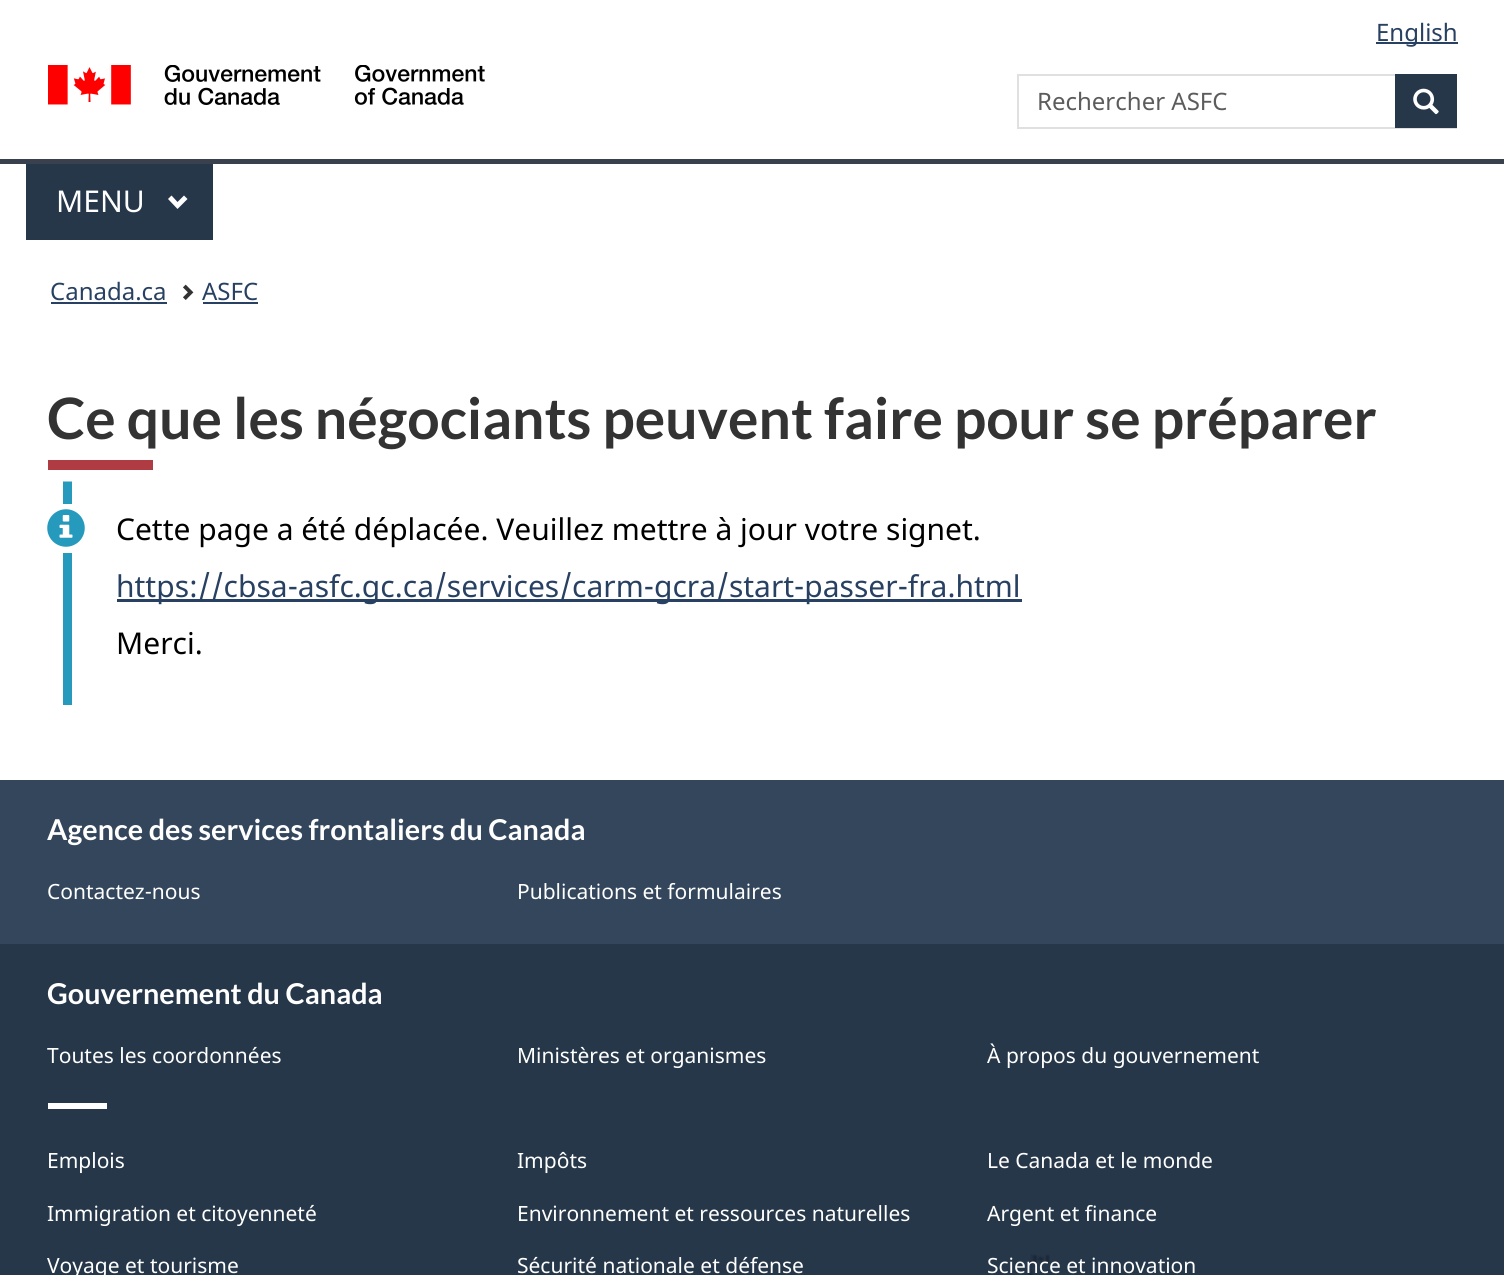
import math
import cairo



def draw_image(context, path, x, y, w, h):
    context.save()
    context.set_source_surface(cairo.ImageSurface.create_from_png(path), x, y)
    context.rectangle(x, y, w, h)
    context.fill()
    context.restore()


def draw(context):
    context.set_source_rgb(1, 1, 1)
    context.paint()
    context.set_source_rgb(40 / 255, 65 / 255, 98 / 255)
    context.rectangle(1376, 42, 82, 2)
    context.fill()
    draw_image(context, "images/1.png", 48, 65, 437, 40)
    context.rectangle(1018, 75, 438, 53)
    context.set_source_rgb(224 / 255, 224 / 255, 224 / 255)
    context.stroke()
    context.set_source_rgb(38 / 255, 55 / 255, 74 / 255)
    context.rectangle(1395, 74, 62, 54)
    context.fill()
    draw_image(context, "images/2.png", 1413, 88, 26, 27)
    context.set_source_rgb(56 / 255, 65 / 255, 77 / 255)
    context.rectangle(0, 159, 1504, 5)
    context.fill()
    context.set_source_rgb(38 / 255, 55 / 255, 74 / 255)
    context.rectangle(26, 164, 187, 76)
    context.fill()
    context.set_source_rgb(1, 1, 1)
    context.new_path()
    context.move_to(187.5, 199)
    context.line_to(177.5, 209)
    context.line_to(168, 199)
    context.line_to(171.5, 195.5)
    context.line_to(177.5, 202)
    context.line_to(184, 195.5)
    context.close_path()
    context.fill()
    context.set_source_rgb(40 / 255, 65 / 255, 98 / 255)
    context.rectangle(51, 302, 116, 2)
    context.fill()
    draw_image(context, "images/3.png", 183, 284, 11, 16)
    context.rectangle(203, 302, 55, 2)
    context.fill()
    context.set_source_rgb(175 / 255, 60 / 255, 67 / 255)
    context.rectangle(48, 460, 105, 10)
    context.fill()
    draw_image(context, "images/4.png", 63, 481, 9, 224)
    draw_image(context, "images/5.png", 47, 509, 38, 38)
    context.set_source_rgb(40 / 255, 65 / 255, 98 / 255)
    context.rectangle(117, 599, 905, 3)
    context.fill()
    context.set_source_rgb(51 / 255, 70 / 255, 92 / 255)
    context.rectangle(0, 780, 1504, 164)
    context.fill()
    context.set_source_rgb(38 / 255, 55 / 255, 74 / 255)
    context.rectangle(0, 944, 1504, 331)
    context.fill()
    draw_image(context, "images/6.png", 1028, 1254, 22, 21)
    context.set_source_rgb(1, 1, 1)
    context.rectangle(48, 1103, 59, 6)
    context.fill()
    context.select_font_face("Noto Sans")
    context.set_font_size(24)
    context.set_source_rgb(40 / 255, 65 / 255, 98 / 255)
    context.move_to(1376, 41)
    context.show_text("English")
    context.set_source_rgb(92 / 255, 92 / 255, 92 / 255)
    context.move_to(1037, 110)
    context.show_text("Rechercher ASFC")
    context.set_font_size(30)
    context.set_source_rgb(1, 1, 1)
    context.move_to(56, 212)
    context.show_text("MENU")
    context.set_font_size(24)
    context.set_source_rgb(40 / 255, 65 / 255, 98 / 255)
    context.move_to(50, 300)
    context.show_text("Canada.ca")
    context.move_to(202, 300)
    context.show_text("ASFC")
    context.select_font_face("Lato", cairo.FontSlant.NORMAL, cairo.FontWeight.BOLD)
    context.set_font_size(57)
    context.set_source_rgb(51 / 255, 51 / 255, 51 / 255)
    context.move_to(47, 439)
    context.show_text("Ce que les négociants peuvent faire pour se préparer")
    context.select_font_face("Noto Sans")
    context.set_font_size(30)
    context.set_source_rgb(0, 0, 0)
    context.move_to(116, 540)
    context.show_text("Cette page a été déplacée. Veuillez mettre à jour votre signet.")
    context.set_source_rgb(40 / 255, 65 / 255, 98 / 255)
    context.move_to(116, 597)
    context.show_text("https://cbsa-asfc.gc.ca/services/carm-gcra/start-passer-fra.html")
    context.set_source_rgb(0, 0, 0)
    context.move_to(116, 654)
    context.show_text("Merci.")
    context.select_font_face("Lato", cairo.FontSlant.NORMAL, cairo.FontWeight.BOLD)
    context.set_font_size(28.75)
    context.set_source_rgb(1, 1, 1)
    context.move_to(47, 840)
    context.show_text("Agence des services frontaliers du Canada")
    context.select_font_face("Noto Sans")
    context.set_font_size(21)
    context.move_to(47, 899)
    context.show_text("Contactez-nous")
    context.move_to(517, 899)
    context.show_text("Publications et formulaires")
    context.select_font_face("Lato", cairo.FontSlant.NORMAL, cairo.FontWeight.BOLD)
    context.set_font_size(28.75)
    context.move_to(47, 1004)
    context.show_text("Gouvernement du Canada")
    context.select_font_face("Noto Sans")
    context.set_font_size(21)
    context.move_to(47, 1063)
    context.show_text("Toutes les coordonnées")
    context.move_to(517, 1063)
    context.show_text("Ministères et organismes")
    context.move_to(987, 1063)
    context.show_text("À propos du gouvernement")
    context.move_to(47, 1168)
    context.show_text("Emplois")
    context.move_to(517, 1168)
    context.show_text("Impôts")
    context.move_to(987, 1168)
    context.show_text("Le Canada et le monde")
    context.move_to(47, 1221)
    context.show_text("Immigration et citoyenneté")
    context.move_to(517, 1221)
    context.show_text("Environnement et ressources naturelles")
    context.move_to(987, 1221)
    context.show_text("Argent et finance")
    context.move_to(47, 1273)
    context.show_text("Voyage et tourisme")
    context.move_to(517, 1273)
    context.show_text("Sécurité nationale et défense")
    context.move_to(987, 1273)
    context.show_text("Science et innovation")


surface = cairo.ImageSurface(cairo.Format.RGB24, 1504, 1275)
context = cairo.Context(surface)
options = cairo.FontOptions()
options.set_hint_metrics(cairo.HintMetrics.OFF)
options.set_hint_style(cairo.HintStyle.NONE)
context.set_font_options(options)
context.set_miter_limit(4)
draw(context)
surface.write_to_png("out.png")
